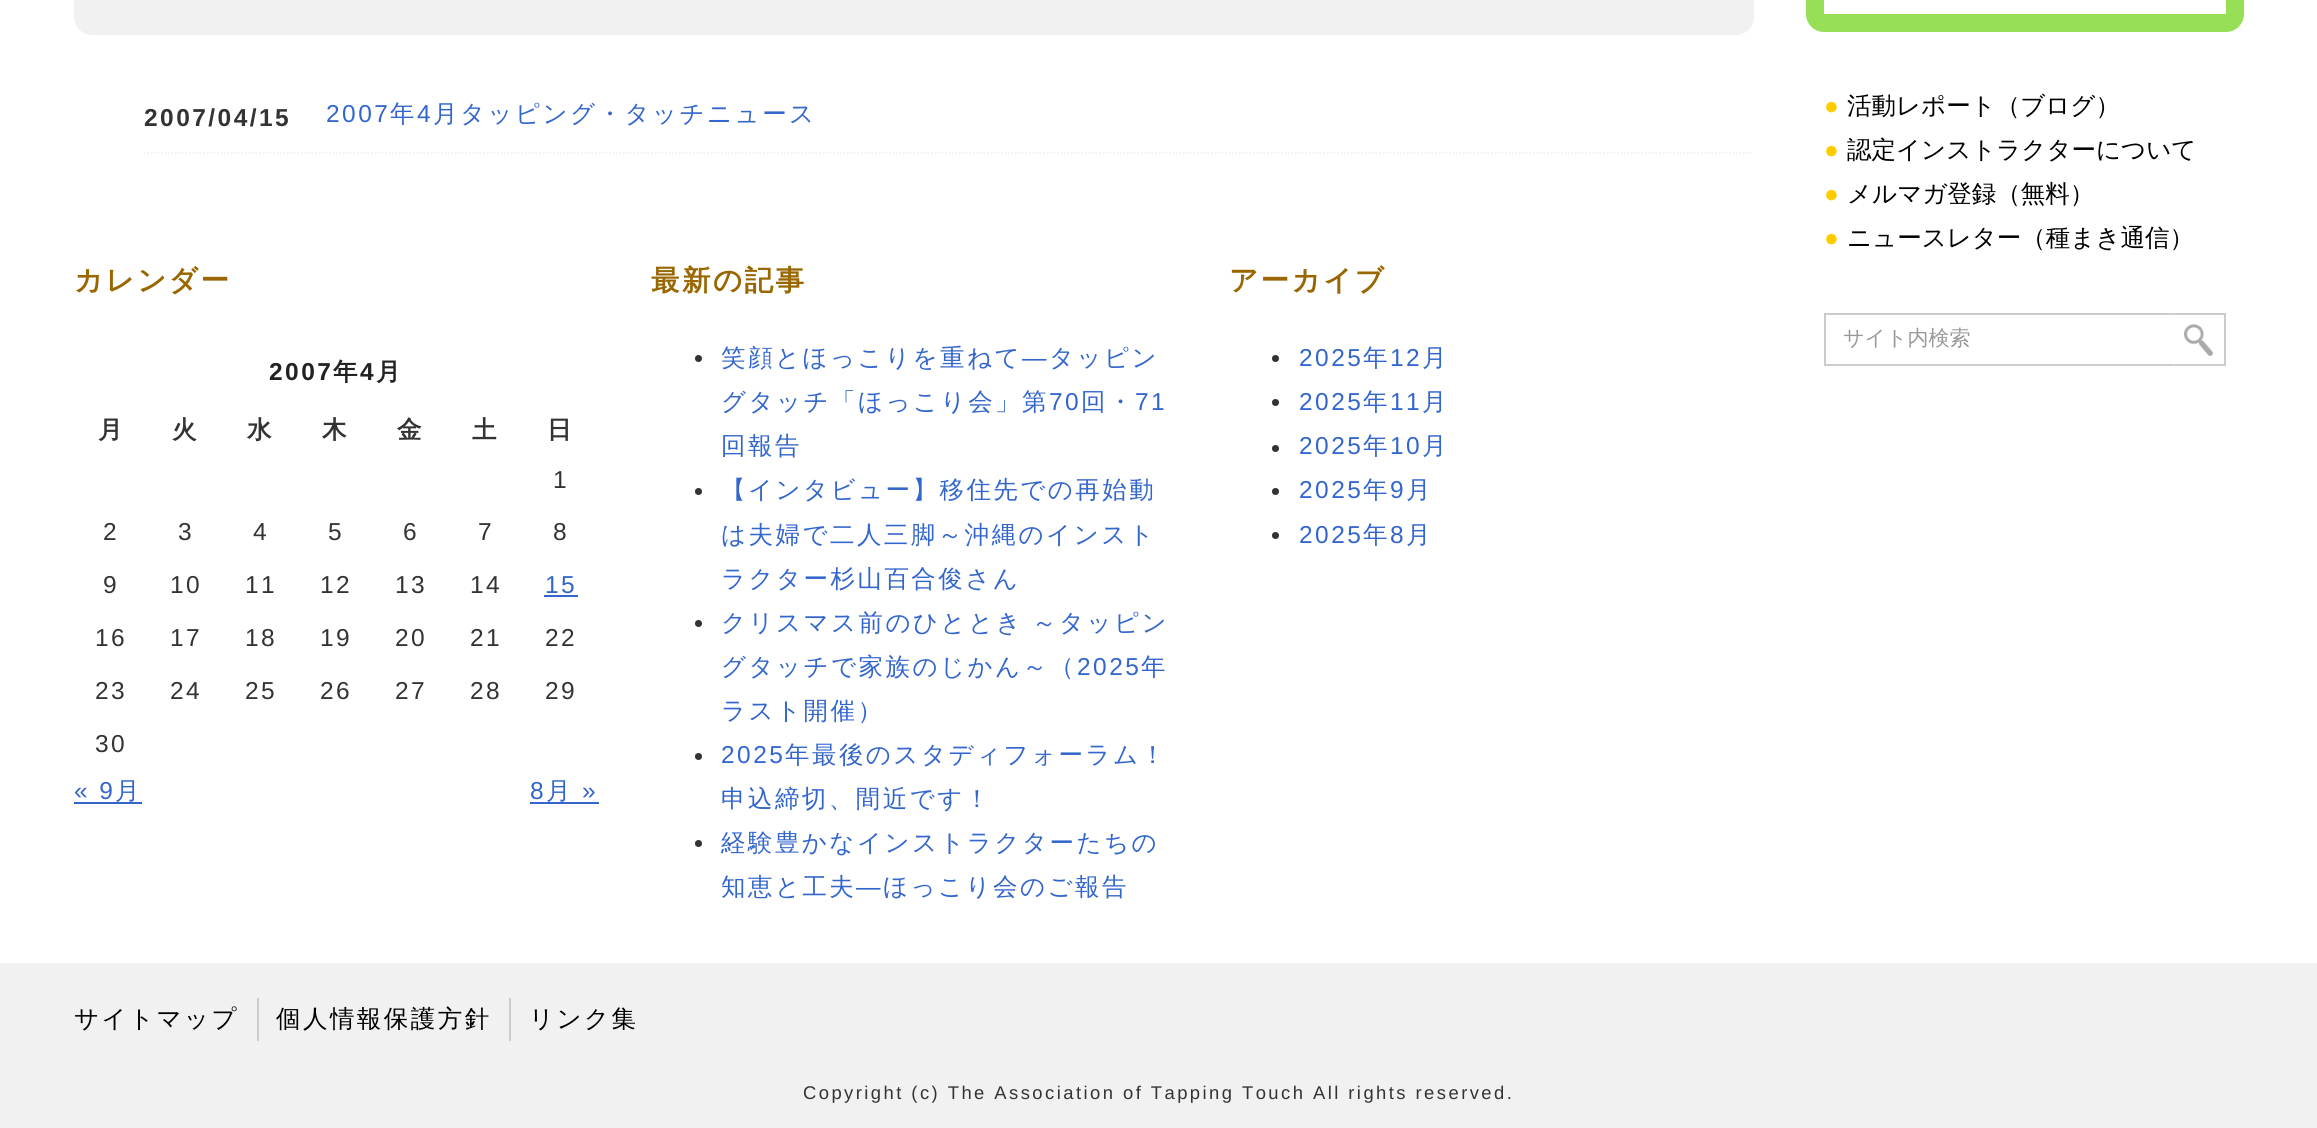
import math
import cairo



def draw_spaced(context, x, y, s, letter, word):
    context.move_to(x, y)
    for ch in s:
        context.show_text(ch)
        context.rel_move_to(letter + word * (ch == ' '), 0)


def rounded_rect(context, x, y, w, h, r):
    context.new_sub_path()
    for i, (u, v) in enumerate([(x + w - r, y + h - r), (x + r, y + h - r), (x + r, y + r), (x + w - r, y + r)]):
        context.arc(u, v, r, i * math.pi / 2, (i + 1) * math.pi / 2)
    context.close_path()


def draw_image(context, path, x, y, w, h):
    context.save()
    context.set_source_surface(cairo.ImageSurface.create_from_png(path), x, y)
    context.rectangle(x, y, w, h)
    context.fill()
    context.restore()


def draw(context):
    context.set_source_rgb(1, 1, 1)
    context.paint()
    context.set_source_rgb(241 / 255, 241 / 255, 241 / 255)
    rounded_rect(context, 74, -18, 1680, 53, 18)
    context.fill()
    context.new_path()
    context.move_to(143.5, 153)
    context.line_to(1753.5, 153)
    context.set_line_width(1.8)
    context.set_dash([1.75, 1.75])
    context.stroke()
    context.set_source_rgb(51 / 255, 102 / 255, 204 / 255)
    context.rectangle(544, 595, 34, 2)
    context.fill()
    context.rectangle(74, 802, 68, 2)
    context.fill()
    context.rectangle(530, 802, 69, 2)
    context.fill()
    context.set_source_rgb(51 / 255, 51 / 255, 51 / 255)
    context.arc(698.5, 358.5, 3.5, 0, 2 * math.pi)
    context.fill()
    context.arc(698.5, 491.5, 3.5, 0, 2 * math.pi)
    context.fill()
    context.arc(698.5, 623.5, 3.5, 0, 2 * math.pi)
    context.fill()
    context.arc(698.5, 756.5, 3.5, 0, 2 * math.pi)
    context.fill()
    context.arc(698.5, 843.5, 3.5, 0, 2 * math.pi)
    context.fill()
    context.arc(1275.5, 358.5, 3.5, 0, 2 * math.pi)
    context.fill()
    context.arc(1275.5, 402.5, 3.5, 0, 2 * math.pi)
    context.fill()
    context.arc(1275.5, 448.5, 3.5, 0, 2 * math.pi)
    context.fill()
    context.arc(1275.5, 491.5, 3.5, 0, 2 * math.pi)
    context.fill()
    context.arc(1275.5, 535.5, 3.5, 0, 2 * math.pi)
    context.fill()
    context.set_source_rgb(151 / 255, 223 / 255, 86 / 255)
    rounded_rect(context, 1806, -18, 438, 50, 18)
    context.fill()
    context.set_source_rgb(1, 1, 1)
    context.rectangle(1824, 0, 402, 14)
    context.fill()
    context.set_source_rgb(204 / 255, 204 / 255, 204 / 255)
    context.rectangle(1824, 313, 350, 2)
    context.fill()
    context.rectangle(1824, 364, 350, 2)
    context.fill()
    context.rectangle(1824, 313, 2, 53)
    context.fill()
    draw_image(context, "images/1.png", 2173, 314, 51, 52)
    context.rectangle(2174, 313, 52, 2)
    context.fill()
    context.rectangle(2224, 313, 2, 53)
    context.fill()
    context.rectangle(2174, 364, 52, 2)
    context.fill()
    context.set_source_rgb(241 / 255, 241 / 255, 241 / 255)
    context.rectangle(0, 963, 2317, 165)
    context.fill()
    context.set_source_rgb(204 / 255, 204 / 255, 204 / 255)
    context.rectangle(257, 998, 2, 43)
    context.fill()
    context.rectangle(509, 998, 2, 43)
    context.fill()
    context.select_font_face("Liberation Sans", cairo.FontSlant.NORMAL, cairo.FontWeight.BOLD)
    context.set_font_size(24.5)
    context.set_source_rgb(51 / 255, 51 / 255, 51 / 255)
    draw_spaced(context, 144, 126, "2007/04/15", 2.45, 0)
    context.select_font_face("Liberation Sans")
    context.set_source_rgb(51 / 255, 102 / 255, 204 / 255)
    draw_spaced(context, 326, 122, "2007", 2.45, 0)
    context.select_font_face("WenQuanYi Zen Hei Medium")
    draw_spaced(context, 390, 122, "年", 2.45, 0)
    context.select_font_face("Liberation Sans")
    draw_spaced(context, 417, 122, "4", 2.45, 0)
    context.select_font_face("WenQuanYi Zen Hei Medium")
    draw_spaced(context, 433, 122, "月タッピング・タッチニュース", 2.45, 0)
    context.select_font_face("WenQuanYi Zen Hei", cairo.FontSlant.NORMAL, cairo.FontWeight.BOLD)
    context.set_font_size(28.5)
    context.set_source_rgb(153 / 255, 102 / 255, 0)
    draw_spaced(context, 74, 290, "カレンダー", 2.45, 0)
    context.select_font_face("Liberation Sans", cairo.FontSlant.NORMAL, cairo.FontWeight.BOLD)
    context.set_font_size(24.5)
    context.set_source_rgb(34 / 255, 34 / 255, 34 / 255)
    draw_spaced(context, 269, 380, "2007", 2.45, 0)
    context.select_font_face("WenQuanYi Zen Hei", cairo.FontSlant.NORMAL, cairo.FontWeight.BOLD)
    draw_spaced(context, 333, 380, "年", 2.45, 0)
    context.select_font_face("Liberation Sans", cairo.FontSlant.NORMAL, cairo.FontWeight.BOLD)
    draw_spaced(context, 360, 380, "4", 2.45, 0)
    context.select_font_face("WenQuanYi Zen Hei", cairo.FontSlant.NORMAL, cairo.FontWeight.BOLD)
    draw_spaced(context, 376, 380, "月", 2.45, 0)
    context.set_source_rgb(51 / 255, 51 / 255, 51 / 255)
    draw_spaced(context, 98, 438, "月", 2.45, 0)
    draw_spaced(context, 172, 438, "火", 2.45, 0)
    draw_spaced(context, 247, 438, "水", 2.45, 0)
    draw_spaced(context, 322, 438, "木", 2.45, 0)
    draw_spaced(context, 397, 438, "金", 2.45, 0)
    draw_spaced(context, 472, 438, "土", 2.45, 0)
    draw_spaced(context, 547, 438, "日", 2.45, 0)
    context.select_font_face("Liberation Sans")
    draw_spaced(context, 553, 488, "1", 2.45, 0)
    draw_spaced(context, 103, 540, "2", 2.45, 0)
    draw_spaced(context, 178, 540, "3", 2.45, 0)
    draw_spaced(context, 253, 540, "4", 2.45, 0)
    draw_spaced(context, 328, 540, "5", 2.45, 0)
    draw_spaced(context, 403, 540, "6", 2.45, 0)
    draw_spaced(context, 478, 540, "7", 2.45, 0)
    draw_spaced(context, 553, 540, "8", 2.45, 0)
    draw_spaced(context, 103, 593, "9", 2.45, 0)
    draw_spaced(context, 170, 593, "10", 2.45, 0)
    draw_spaced(context, 245, 593, "11", 2.45, 0)
    draw_spaced(context, 320, 593, "12", 2.45, 0)
    draw_spaced(context, 395, 593, "13", 2.45, 0)
    draw_spaced(context, 470, 593, "14", 2.45, 0)
    context.set_source_rgb(51 / 255, 102 / 255, 204 / 255)
    draw_spaced(context, 545, 593, "15", 2.45, 0)
    context.set_source_rgb(51 / 255, 51 / 255, 51 / 255)
    draw_spaced(context, 95, 646, "16", 2.45, 0)
    draw_spaced(context, 170, 646, "17", 2.45, 0)
    draw_spaced(context, 245, 646, "18", 2.45, 0)
    draw_spaced(context, 320, 646, "19", 2.45, 0)
    draw_spaced(context, 395, 646, "20", 2.45, 0)
    draw_spaced(context, 470, 646, "21", 2.45, 0)
    draw_spaced(context, 545, 646, "22", 2.45, 0)
    draw_spaced(context, 95, 699, "23", 2.45, 0)
    draw_spaced(context, 170, 699, "24", 2.45, 0)
    draw_spaced(context, 245, 699, "25", 2.45, 0)
    draw_spaced(context, 320, 699, "26", 2.45, 0)
    draw_spaced(context, 395, 699, "27", 2.45, 0)
    draw_spaced(context, 470, 699, "28", 2.45, 0)
    draw_spaced(context, 545, 699, "29", 2.45, 0)
    draw_spaced(context, 95, 752, "30", 2.45, 0)
    context.set_source_rgb(51 / 255, 102 / 255, 204 / 255)
    draw_spaced(context, 74, 799, "« 9", 2.45, 0)
    context.select_font_face("WenQuanYi Zen Hei Medium")
    draw_spaced(context, 115, 799, "月", 2.45, 0)
    context.select_font_face("Liberation Sans")
    draw_spaced(context, 530, 799, "8", 2.45, 0)
    context.select_font_face("WenQuanYi Zen Hei Medium")
    draw_spaced(context, 546, 799, "月", 2.45, 0)
    context.select_font_face("Liberation Sans")
    draw_spaced(context, 582, 799, "»", 2.45, 0)
    context.select_font_face("WenQuanYi Zen Hei", cairo.FontSlant.NORMAL, cairo.FontWeight.BOLD)
    context.set_font_size(28.5)
    context.set_source_rgb(153 / 255, 102 / 255, 0)
    draw_spaced(context, 651, 290, "最新の記事", 2.45, 0)
    context.select_font_face("WenQuanYi Zen Hei Medium")
    context.set_font_size(24.5)
    context.set_source_rgb(51 / 255, 102 / 255, 204 / 255)
    draw_spaced(context, 721, 366, "笑顔とほっこりを重ねて", 2.45, 0)
    context.select_font_face("Liberation Sans")
    draw_spaced(context, 1022, 366, "―", 2.45, 0)
    context.select_font_face("WenQuanYi Zen Hei Medium")
    draw_spaced(context, 1049, 366, "タッピン", 2.45, 0)
    draw_spaced(context, 721, 410, "グタッチ「ほっこり会」第", 2.45, 0)
    context.select_font_face("Liberation Sans")
    draw_spaced(context, 1049, 410, "70", 2.45, 0)
    context.select_font_face("WenQuanYi Zen Hei Medium")
    draw_spaced(context, 1081, 410, "回・", 2.45, 0)
    context.select_font_face("Liberation Sans")
    draw_spaced(context, 1135, 410, "71", 2.45, 0)
    context.select_font_face("WenQuanYi Zen Hei Medium")
    draw_spaced(context, 721, 454, "回報告", 2.45, 0)
    draw_spaced(context, 721, 498, "【インタビュー】移住先での再始動", 2.45, 0)
    draw_spaced(context, 721, 543, "は夫婦で二人三脚～沖縄のインスト", 2.45, 0)
    draw_spaced(context, 721, 587, "ラクター杉山百合俊さん", 2.45, 0)
    draw_spaced(context, 721, 631, "クリスマス前のひととき ～タッピン", 2.45, -1)
    draw_spaced(context, 721, 675, "グタッチで家族のじかん～（", 2.45, 0)
    context.select_font_face("Liberation Sans")
    draw_spaced(context, 1077, 675, "2025", 2.45, 0)
    context.select_font_face("WenQuanYi Zen Hei Medium")
    draw_spaced(context, 1141, 675, "年", 2.45, 0)
    draw_spaced(context, 721, 719, "ラスト開催）", 2.45, 0)
    context.select_font_face("Liberation Sans")
    draw_spaced(context, 721, 763, "2025", 2.45, 0)
    context.select_font_face("WenQuanYi Zen Hei Medium")
    draw_spaced(context, 785, 763, "年最後のスタディフォーラム！", 2.45, 0)
    draw_spaced(context, 721, 807, "申込締切、間近です！", 2.45, 0)
    draw_spaced(context, 721, 851, "経験豊かなインストラクターたちの", 2.45, 0)
    draw_spaced(context, 721, 895, "知恵と工夫", 2.45, 0)
    context.select_font_face("Liberation Sans")
    draw_spaced(context, 856, 895, "―", 2.45, 0)
    context.select_font_face("WenQuanYi Zen Hei Medium")
    draw_spaced(context, 883, 895, "ほっこり会のご報告", 2.45, 0)
    context.select_font_face("WenQuanYi Zen Hei", cairo.FontSlant.NORMAL, cairo.FontWeight.BOLD)
    context.set_font_size(28.5)
    context.set_source_rgb(153 / 255, 102 / 255, 0)
    draw_spaced(context, 1229, 290, "アーカイブ", 2.45, 0)
    context.select_font_face("Liberation Sans")
    context.set_font_size(24.5)
    context.set_source_rgb(51 / 255, 102 / 255, 204 / 255)
    draw_spaced(context, 1299, 366, "2025", 2.45, 0)
    context.select_font_face("WenQuanYi Zen Hei Medium")
    draw_spaced(context, 1363, 366, "年", 2.45, 0)
    context.select_font_face("Liberation Sans")
    draw_spaced(context, 1390, 366, "12", 2.45, 0)
    context.select_font_face("WenQuanYi Zen Hei Medium")
    draw_spaced(context, 1422, 366, "月", 2.45, 0)
    context.select_font_face("Liberation Sans")
    draw_spaced(context, 1299, 410, "2025", 2.45, 0)
    context.select_font_face("WenQuanYi Zen Hei Medium")
    draw_spaced(context, 1363, 410, "年", 2.45, 0)
    context.select_font_face("Liberation Sans")
    draw_spaced(context, 1390, 410, "11", 2.45, 0)
    context.select_font_face("WenQuanYi Zen Hei Medium")
    draw_spaced(context, 1422, 410, "月", 2.45, 0)
    context.select_font_face("Liberation Sans")
    draw_spaced(context, 1299, 454, "2025", 2.45, 0)
    context.select_font_face("WenQuanYi Zen Hei Medium")
    draw_spaced(context, 1363, 454, "年", 2.45, 0)
    context.select_font_face("Liberation Sans")
    draw_spaced(context, 1390, 454, "10", 2.45, 0)
    context.select_font_face("WenQuanYi Zen Hei Medium")
    draw_spaced(context, 1422, 454, "月", 2.45, 0)
    context.select_font_face("Liberation Sans")
    draw_spaced(context, 1299, 498, "2025", 2.45, 0)
    context.select_font_face("WenQuanYi Zen Hei Medium")
    draw_spaced(context, 1363, 498, "年", 2.45, 0)
    context.select_font_face("Liberation Sans")
    draw_spaced(context, 1390, 498, "9", 2.45, 0)
    context.select_font_face("WenQuanYi Zen Hei Medium")
    draw_spaced(context, 1406, 498, "月", 2.45, 0)
    context.select_font_face("Liberation Sans")
    draw_spaced(context, 1299, 543, "2025", 2.45, 0)
    context.select_font_face("WenQuanYi Zen Hei Medium")
    draw_spaced(context, 1363, 543, "年", 2.45, 0)
    context.select_font_face("Liberation Sans")
    draw_spaced(context, 1390, 543, "8", 2.45, 0)
    context.select_font_face("WenQuanYi Zen Hei Medium")
    draw_spaced(context, 1406, 543, "月", 2.45, 0)
    context.select_font_face("Liberation Sans")
    context.set_source_rgb(1, 204 / 255, 0)
    context.move_to(1824, 114)
    context.show_text("●")
    context.select_font_face("WenQuanYi Zen Hei Medium")
    context.set_source_rgb(0, 0, 0)
    context.move_to(1847, 114)
    context.show_text("活動レポート（ブログ）")
    context.select_font_face("Liberation Sans")
    context.set_source_rgb(1, 204 / 255, 0)
    context.move_to(1824, 158)
    context.show_text("●")
    context.select_font_face("WenQuanYi Zen Hei Medium")
    context.set_source_rgb(0, 0, 0)
    context.move_to(1847, 158)
    context.show_text("認定インストラクターについて")
    context.select_font_face("Liberation Sans")
    context.set_source_rgb(1, 204 / 255, 0)
    context.move_to(1824, 202)
    context.show_text("●")
    context.select_font_face("WenQuanYi Zen Hei Medium")
    context.set_source_rgb(0, 0, 0)
    context.move_to(1847, 202)
    context.show_text("メルマガ登録（無料）")
    context.select_font_face("Liberation Sans")
    context.set_source_rgb(1, 204 / 255, 0)
    context.move_to(1824, 246)
    context.show_text("●")
    context.select_font_face("WenQuanYi Zen Hei Medium")
    context.set_source_rgb(0, 0, 0)
    context.move_to(1847, 246)
    context.show_text("ニュースレター（種まき通信）")
    context.set_font_size(21)
    context.set_source_rgb(153 / 255, 153 / 255, 153 / 255)
    context.move_to(1843, 345)
    context.show_text("サイト内検索")
    context.set_font_size(24.5)
    context.set_source_rgb(0, 0, 0)
    draw_spaced(context, 74, 1027, "サイトマップ", 2.45, 0)
    draw_spaced(context, 276, 1027, "個人情報保護方針", 2.45, 0)
    draw_spaced(context, 529, 1027, "リンク集", 2.45, 0)
    context.select_font_face("Liberation Sans")
    context.set_font_size(18.4)
    context.set_source_rgb(51 / 255, 51 / 255, 51 / 255)
    draw_spaced(context, 803, 1099, "Copyright (c) The Association of Tapping Touch All rights reserved.", 2.45, 0)


surface = cairo.ImageSurface(cairo.Format.RGB24, 2317, 1128)
context = cairo.Context(surface)
options = cairo.FontOptions()
options.set_hint_metrics(cairo.HintMetrics.OFF)
options.set_hint_style(cairo.HintStyle.NONE)
context.set_font_options(options)
context.set_miter_limit(4)
draw(context)
surface.write_to_png("out.png")
